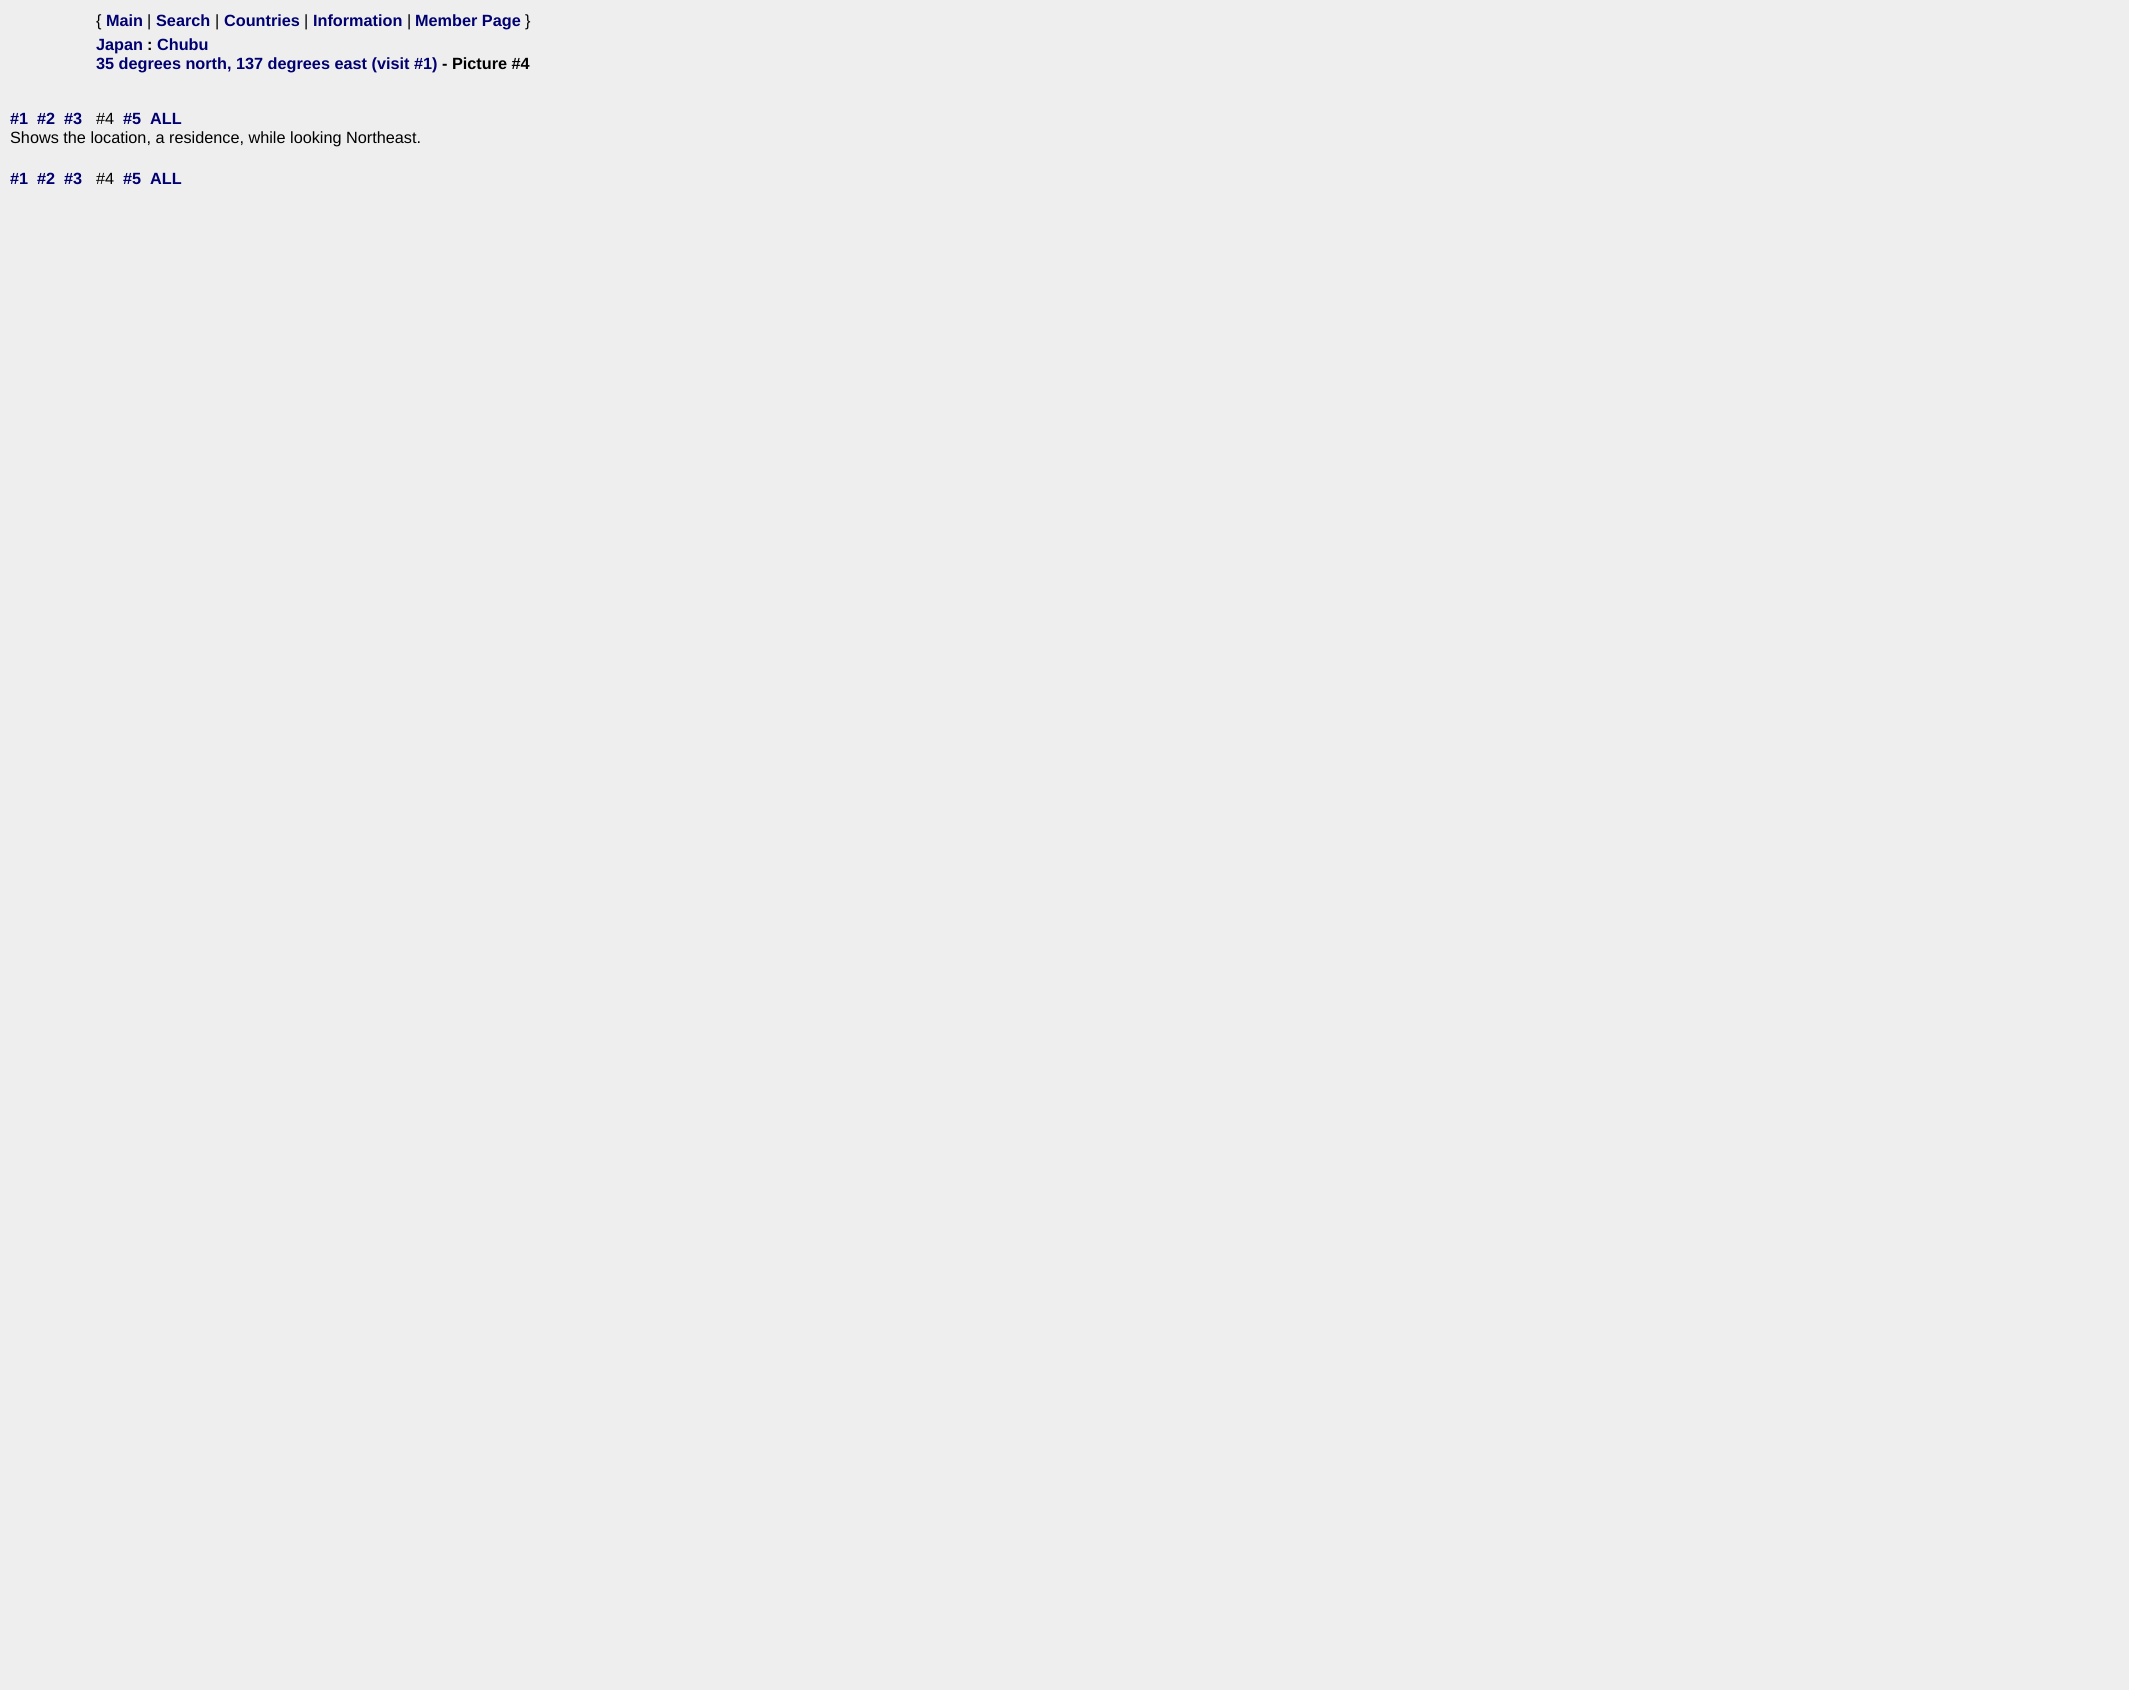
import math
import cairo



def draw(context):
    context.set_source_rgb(238 / 255, 238 / 255, 238 / 255)
    context.paint()
    context.select_font_face("Liberation Sans")
    context.set_font_size(16.25)
    context.set_source_rgb(0, 0, 0)
    context.move_to(96, 26)
    context.show_text("{")
    context.select_font_face("Liberation Sans", cairo.FontSlant.NORMAL, cairo.FontWeight.BOLD)
    context.set_source_rgb(0, 0, 112 / 255)
    context.move_to(106, 26)
    context.show_text("Main")
    context.select_font_face("Liberation Sans")
    context.set_source_rgb(0, 0, 0)
    context.move_to(147, 26)
    context.show_text("|")
    context.select_font_face("Liberation Sans", cairo.FontSlant.NORMAL, cairo.FontWeight.BOLD)
    context.set_source_rgb(0, 0, 112 / 255)
    context.move_to(156, 26)
    context.show_text("Search")
    context.select_font_face("Liberation Sans")
    context.set_source_rgb(0, 0, 0)
    context.move_to(215, 26)
    context.show_text("|")
    context.select_font_face("Liberation Sans", cairo.FontSlant.NORMAL, cairo.FontWeight.BOLD)
    context.set_source_rgb(0, 0, 112 / 255)
    context.move_to(224, 26)
    context.show_text("Countries")
    context.select_font_face("Liberation Sans")
    context.set_source_rgb(0, 0, 0)
    context.move_to(304, 26)
    context.show_text("|")
    context.select_font_face("Liberation Sans", cairo.FontSlant.NORMAL, cairo.FontWeight.BOLD)
    context.set_source_rgb(0, 0, 112 / 255)
    context.move_to(313, 26)
    context.show_text("Information")
    context.select_font_face("Liberation Sans")
    context.set_source_rgb(0, 0, 0)
    context.move_to(407, 26)
    context.show_text("|")
    context.select_font_face("Liberation Sans", cairo.FontSlant.NORMAL, cairo.FontWeight.BOLD)
    context.set_source_rgb(0, 0, 112 / 255)
    context.move_to(415, 26)
    context.show_text("Member Page")
    context.select_font_face("Liberation Sans")
    context.set_source_rgb(0, 0, 0)
    context.move_to(525, 26)
    context.show_text("}")
    context.select_font_face("Liberation Sans", cairo.FontSlant.NORMAL, cairo.FontWeight.BOLD)
    context.set_source_rgb(0, 0, 112 / 255)
    context.move_to(96, 50)
    context.show_text("Japan")
    context.set_source_rgb(0, 0, 0)
    context.move_to(147, 50)
    context.show_text(":")
    context.set_source_rgb(0, 0, 112 / 255)
    context.move_to(157, 50)
    context.show_text("Chubu")
    context.move_to(96, 69)
    context.show_text("35 degrees north, 137 degrees east (visit #1)")
    context.set_source_rgb(0, 0, 0)
    context.move_to(442, 69)
    context.show_text("- Picture #4")
    context.set_source_rgb(0, 0, 112 / 255)
    context.move_to(10, 124)
    context.show_text("#1")
    context.move_to(37, 124)
    context.show_text("#2")
    context.move_to(64, 124)
    context.show_text("#3")
    context.select_font_face("Liberation Sans")
    context.set_source_rgb(0, 0, 0)
    context.move_to(96, 124)
    context.show_text("#4")
    context.select_font_face("Liberation Sans", cairo.FontSlant.NORMAL, cairo.FontWeight.BOLD)
    context.set_source_rgb(0, 0, 112 / 255)
    context.move_to(123, 124)
    context.show_text("#5")
    context.move_to(150, 124)
    context.show_text("ALL")
    context.select_font_face("Liberation Sans")
    context.set_source_rgb(0, 0, 0)
    context.move_to(10, 143)
    context.show_text("Shows the location, a residence, while looking Northeast.")
    context.select_font_face("Liberation Sans", cairo.FontSlant.NORMAL, cairo.FontWeight.BOLD)
    context.set_source_rgb(0, 0, 112 / 255)
    context.move_to(10, 184)
    context.show_text("#1")
    context.move_to(37, 184)
    context.show_text("#2")
    context.move_to(64, 184)
    context.show_text("#3")
    context.select_font_face("Liberation Sans")
    context.set_source_rgb(0, 0, 0)
    context.move_to(96, 184)
    context.show_text("#4")
    context.select_font_face("Liberation Sans", cairo.FontSlant.NORMAL, cairo.FontWeight.BOLD)
    context.set_source_rgb(0, 0, 112 / 255)
    context.move_to(123, 184)
    context.show_text("#5")
    context.move_to(150, 184)
    context.show_text("ALL")


surface = cairo.ImageSurface(cairo.Format.RGB24, 2129, 1690)
context = cairo.Context(surface)
options = cairo.FontOptions()
options.set_hint_metrics(cairo.HintMetrics.OFF)
options.set_hint_style(cairo.HintStyle.NONE)
context.set_font_options(options)
context.set_miter_limit(4)
draw(context)
surface.write_to_png("out.png")
